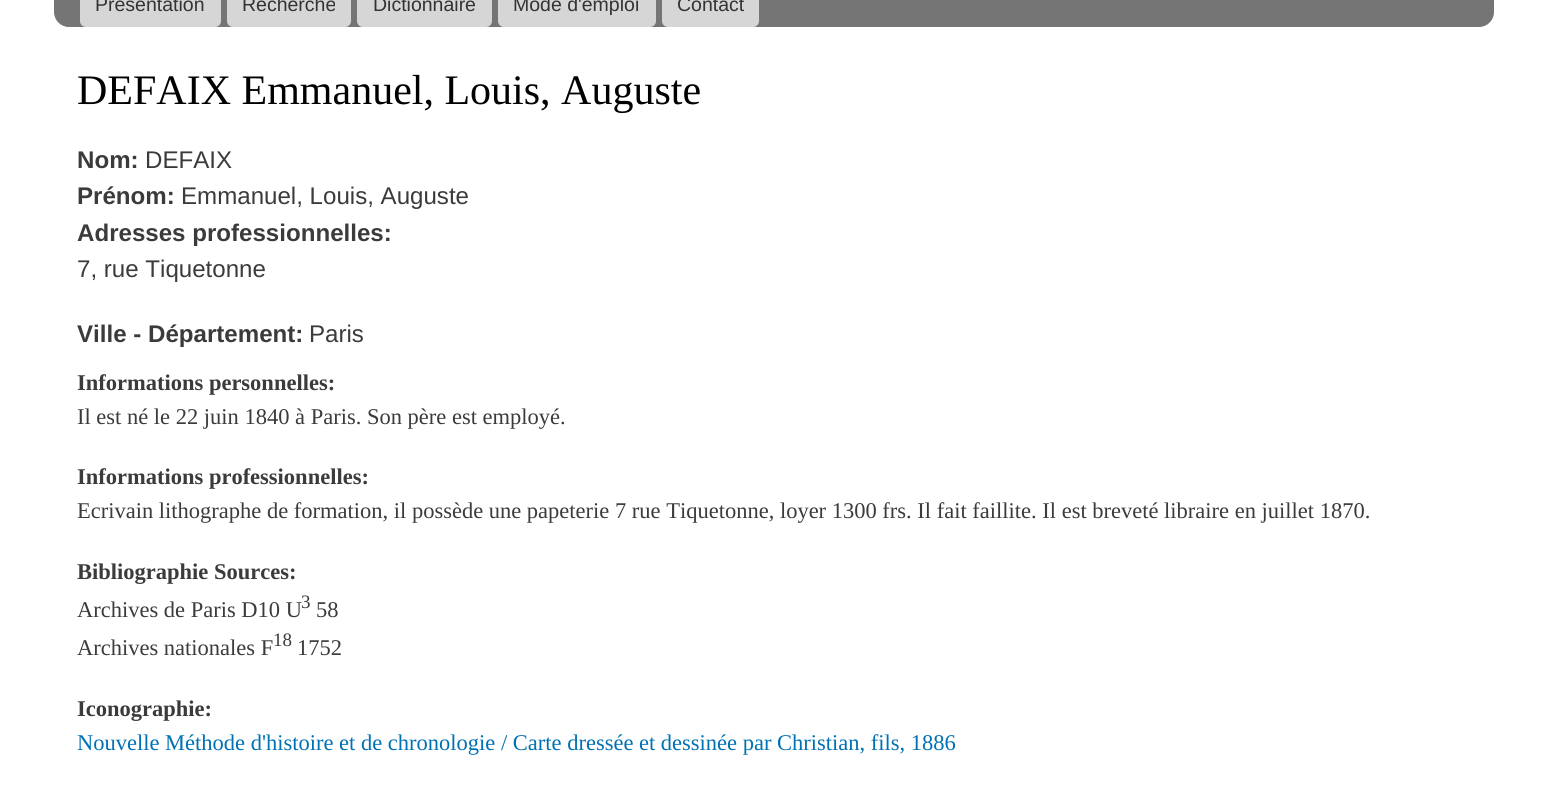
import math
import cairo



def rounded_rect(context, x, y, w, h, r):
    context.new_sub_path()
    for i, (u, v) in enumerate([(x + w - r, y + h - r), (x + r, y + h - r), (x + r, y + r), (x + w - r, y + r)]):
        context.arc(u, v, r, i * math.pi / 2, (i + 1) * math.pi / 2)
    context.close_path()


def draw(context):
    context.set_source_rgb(1, 1, 1)
    context.paint()
    context.set_source_rgb(117 / 255, 117 / 255, 117 / 255)
    rounded_rect(context, 54, -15, 1440, 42, 15)
    context.fill()
    context.set_source_rgb(214 / 255, 214 / 255, 214 / 255)
    rounded_rect(context, 80, -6, 141, 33, 6)
    context.fill()
    rounded_rect(context, 227, -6, 124, 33, 6)
    context.fill()
    rounded_rect(context, 357, -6, 135, 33, 6)
    context.fill()
    rounded_rect(context, 498, -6, 158, 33, 6)
    context.fill()
    rounded_rect(context, 662, -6, 97, 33, 6)
    context.fill()
    context.select_font_face("Liberation Sans")
    context.set_font_size(19.5)
    context.set_source_rgb(51 / 255, 51 / 255, 51 / 255)
    context.move_to(95, 11)
    context.show_text("Présentation")
    context.move_to(242, 11)
    context.show_text("Recherche")
    context.move_to(373, 11)
    context.show_text("Dictionnaire")
    context.move_to(513, 11)
    context.show_text("Mode d'emploi")
    context.move_to(677, 11)
    context.show_text("Contact")
    context.select_font_face("Liberation Serif")
    context.set_font_size(42)
    context.set_source_rgb(0, 0, 0)
    context.move_to(77, 104)
    context.show_text("DEFAIX Emmanuel, Louis, Auguste")
    context.select_font_face("Liberation Sans", cairo.FontSlant.NORMAL, cairo.FontWeight.BOLD)
    context.set_font_size(24.1)
    context.set_source_rgb(59 / 255, 59 / 255, 59 / 255)
    context.move_to(77, 168)
    context.show_text("Nom:")
    context.select_font_face("Liberation Sans")
    context.move_to(145, 168)
    context.show_text("DEFAIX")
    context.select_font_face("Liberation Sans", cairo.FontSlant.NORMAL, cairo.FontWeight.BOLD)
    context.move_to(77, 204)
    context.show_text("Prénom:")
    context.select_font_face("Liberation Sans")
    context.move_to(181, 204)
    context.show_text("Emmanuel, Louis, Auguste")
    context.select_font_face("Liberation Sans", cairo.FontSlant.NORMAL, cairo.FontWeight.BOLD)
    context.move_to(77, 241)
    context.show_text("Adresses professionnelles:")
    context.select_font_face("Liberation Sans")
    context.move_to(77, 277)
    context.show_text("7, rue Tiquetonne")
    context.select_font_face("Liberation Sans", cairo.FontSlant.NORMAL, cairo.FontWeight.BOLD)
    context.move_to(77, 342)
    context.show_text("Ville - Département:")
    context.select_font_face("Liberation Sans")
    context.move_to(309, 342)
    context.show_text("Paris")
    context.select_font_face("Liberation Serif", cairo.FontSlant.NORMAL, cairo.FontWeight.BOLD)
    context.set_font_size(22.5)
    context.move_to(77, 390)
    context.show_text("Informations personnelles:")
    context.select_font_face("Liberation Serif")
    context.move_to(77, 424)
    context.show_text("Il est né le 22 juin 1840 à Paris. Son père est employé.")
    context.select_font_face("Liberation Serif", cairo.FontSlant.NORMAL, cairo.FontWeight.BOLD)
    context.move_to(77, 484)
    context.show_text("Informations professionnelles:")
    context.select_font_face("Liberation Serif")
    context.move_to(77, 518)
    context.show_text("Ecrivain lithographe de formation, il possède une papeterie 7 rue Tiquetonne, loyer 1300 frs. Il fait faillite. Il est breveté libraire en juillet 1870.")
    context.select_font_face("Liberation Serif", cairo.FontSlant.NORMAL, cairo.FontWeight.BOLD)
    context.move_to(77, 579)
    context.show_text("Bibliographie Sources:")
    context.select_font_face("Liberation Serif")
    context.move_to(77, 617)
    context.show_text("Archives de Paris D10 U")
    context.set_font_size(19)
    context.move_to(301, 608)
    context.show_text("3")
    context.set_font_size(22.5)
    context.move_to(316, 617)
    context.show_text("58")
    context.move_to(77, 655)
    context.show_text("Archives nationales F")
    context.set_font_size(19)
    context.move_to(273, 646)
    context.show_text("18")
    context.set_font_size(22.5)
    context.move_to(297, 655)
    context.show_text("1752")
    context.select_font_face("Liberation Serif", cairo.FontSlant.NORMAL, cairo.FontWeight.BOLD)
    context.move_to(77, 716)
    context.show_text("Iconographie:")
    context.select_font_face("Liberation Serif")
    context.set_source_rgb(0, 113 / 255, 179 / 255)
    context.move_to(77, 750)
    context.show_text("Nouvelle Méthode d'histoire et de chronologie / Carte dressée et dessinée par Christian, fils, 1886")


surface = cairo.ImageSurface(cairo.Format.RGB24, 1548, 808)
context = cairo.Context(surface)
options = cairo.FontOptions()
options.set_hint_metrics(cairo.HintMetrics.OFF)
options.set_hint_style(cairo.HintStyle.NONE)
context.set_font_options(options)
context.set_miter_limit(4)
draw(context)
surface.write_to_png("out.png")
